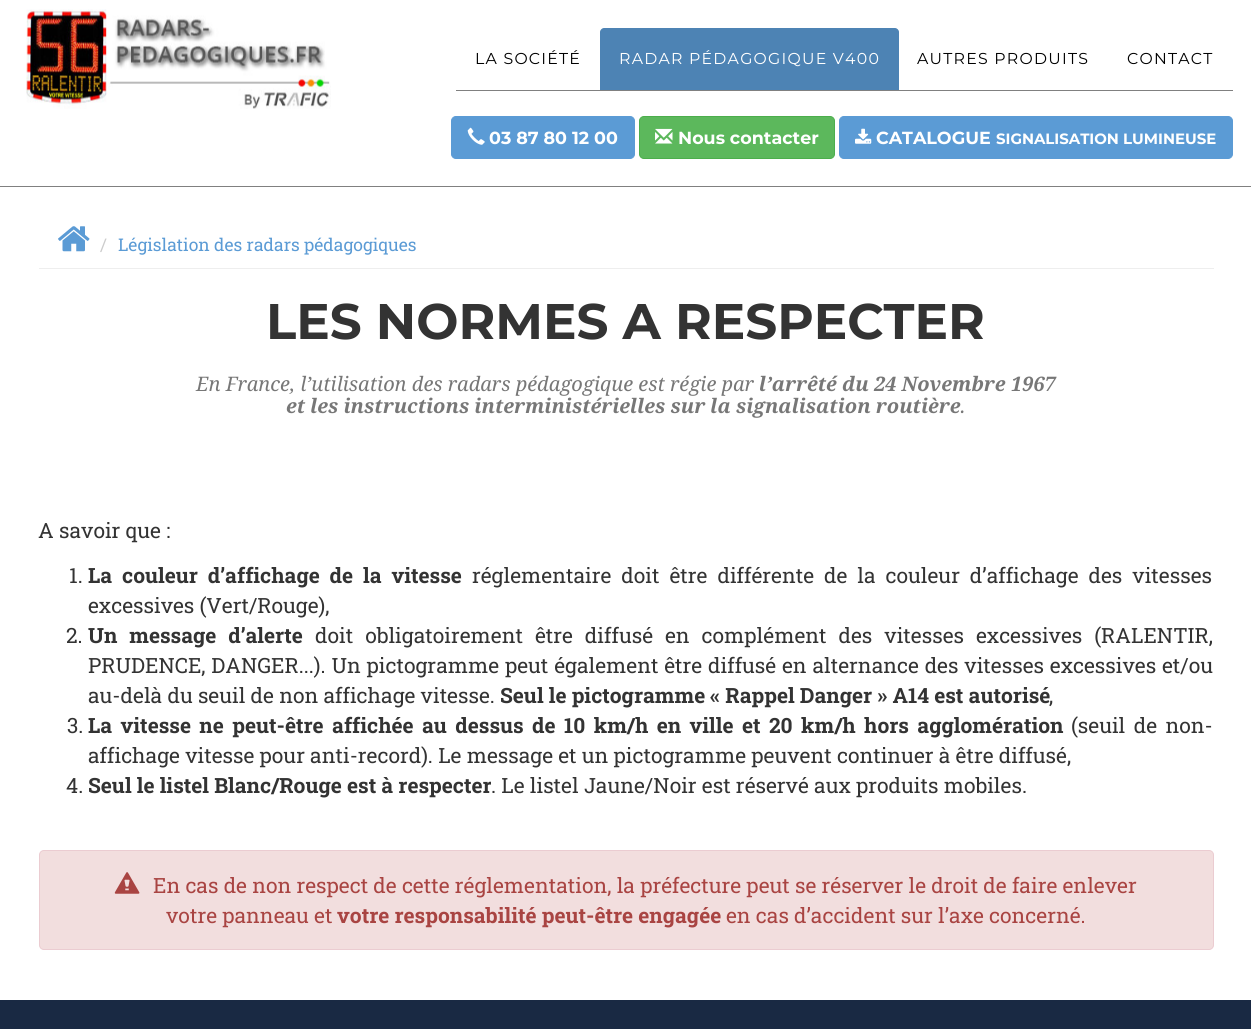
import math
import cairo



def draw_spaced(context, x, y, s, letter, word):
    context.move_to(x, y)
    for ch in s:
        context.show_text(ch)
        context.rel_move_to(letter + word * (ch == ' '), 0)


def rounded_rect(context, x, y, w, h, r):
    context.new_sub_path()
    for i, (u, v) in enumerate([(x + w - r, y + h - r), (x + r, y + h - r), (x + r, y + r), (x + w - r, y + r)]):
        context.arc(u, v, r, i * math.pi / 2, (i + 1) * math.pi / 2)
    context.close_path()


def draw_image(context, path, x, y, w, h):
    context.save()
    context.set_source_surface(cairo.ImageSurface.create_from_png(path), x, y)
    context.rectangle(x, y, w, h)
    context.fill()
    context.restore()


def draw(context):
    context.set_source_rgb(1, 1, 1)
    context.paint()
    context.set_source_rgb(128 / 255, 128 / 255, 128 / 255)
    context.rectangle(0, 186, 1251, 1)
    context.fill()
    draw_image(context, "images/1.png", 26, 9, 305, 100)
    context.rectangle(456, 90, 144, 1)
    context.fill()
    context.set_source_rgb(77 / 255, 131 / 255, 180 / 255)
    context.new_path()
    context.move_to(604, 28)
    context.line_to(895, 28)
    context.curve_to(897, 28, 899, 30, 899, 32)
    context.line_to(899, 91)
    context.line_to(600, 91)
    context.line_to(600, 32)
    context.curve_to(600, 30, 602, 28, 604, 28)
    context.close_path()
    context.fill()
    context.set_source_rgb(128 / 255, 128 / 255, 128 / 255)
    context.rectangle(600, 90, 633, 1)
    context.fill()
    context.set_source_rgb(91 / 255, 155 / 255, 213 / 255)
    rounded_rect(context, 451.5, 116.5, 183, 42, 4.5)
    context.fill_preserve()
    context.set_line_width(1)
    context.stroke()
    draw_image(context, "images/2.png", 467, 127, 18, 18)
    context.set_source_rgb(92 / 255, 184 / 255, 92 / 255)
    rounded_rect(context, 639.5, 116.5, 195, 42, 4.5)
    context.fill_preserve()
    context.set_source_rgb(76 / 255, 174 / 255, 76 / 255)
    context.stroke()
    draw_image(context, "images/3.png", 655, 128, 18, 16)
    context.set_source_rgb(91 / 255, 155 / 255, 213 / 255)
    rounded_rect(context, 839.5, 116.5, 393, 42, 4.5)
    context.fill_preserve()
    context.stroke()
    draw_image(context, "images/4.png", 855, 128, 17, 16)
    context.set_source_rgb(238 / 255, 238 / 255, 238 / 255)
    context.rectangle(39, 268, 1175, 1)
    context.fill()
    draw_image(context, "images/5.png", 58, 226, 32, 26)
    context.set_source_rgb(242 / 255, 222 / 255, 222 / 255)
    rounded_rect(context, 39.5, 850.5, 1174, 99, 4.5)
    context.fill_preserve()
    context.set_source_rgb(235 / 255, 204 / 255, 209 / 255)
    context.stroke()
    draw_image(context, "images/6.png", 114, 872, 26, 22)
    context.set_source_rgb(25 / 255, 41 / 255, 67 / 255)
    context.rectangle(0, 1000, 1251, 29)
    context.fill()
    context.select_font_face("Montserrat")
    context.set_font_size(15.75)
    context.set_source_rgb(0, 0, 0)
    draw_spaced(context, 475, 64, "LA SOCIÉTÉ", 1.25, 0)
    context.set_source_rgb(1, 1, 1)
    draw_spaced(context, 619, 64, "RADAR PÉDAGOGIQUE V400", 1.25, 0)
    context.set_source_rgb(0, 0, 0)
    draw_spaced(context, 917, 64, "AUTRES PRODUITS", 1.25, 0)
    draw_spaced(context, 1127, 64, "CONTACT", 1.25, 0)
    context.select_font_face("Montserrat", cairo.FontSlant.NORMAL, cairo.FontWeight.BOLD)
    context.set_font_size(17.5)
    context.set_source_rgb(1, 1, 1)
    context.move_to(489, 144)
    context.show_text("03 87 80 12 00")
    context.move_to(678, 144)
    context.show_text("Nous contacter")
    context.move_to(876, 144)
    context.show_text("CATALOGUE")
    context.set_font_size(14.9)
    context.move_to(996, 144)
    context.show_text("SIGNALISATION LUMINEUSE")
    context.select_font_face("Roboto Slab")
    context.set_font_size(17.5)
    context.set_source_rgb(204 / 255, 204 / 255, 204 / 255)
    context.move_to(100, 251)
    context.show_text("/")
    context.set_source_rgb(91 / 255, 155 / 255, 213 / 255)
    context.move_to(118, 251)
    context.show_text("Législation des radars pédagogiques")
    context.select_font_face("Montserrat", cairo.FontSlant.NORMAL, cairo.FontWeight.BOLD)
    context.set_font_size(50)
    context.set_source_rgb(51 / 255, 51 / 255, 51 / 255)
    context.move_to(266, 339)
    context.show_text("LES NORMES A RESPECTER")
    context.select_font_face("Droid Serif", cairo.FontSlant.ITALIC)
    context.set_font_size(20)
    context.set_source_rgb(119 / 255, 119 / 255, 119 / 255)
    context.move_to(196, 391)
    context.show_text("En France, l’utilisation des radars pédagogique est régie par")
    context.select_font_face("Droid Serif", cairo.FontSlant.ITALIC, cairo.FontWeight.BOLD)
    context.move_to(759, 391)
    context.show_text("l’arrêté du 24 Novembre 1967")
    context.move_to(286, 413)
    context.show_text("et les instructions interministérielles sur la signalisation routière")
    context.select_font_face("Droid Serif", cairo.FontSlant.ITALIC)
    context.move_to(960, 413)
    context.show_text(".")
    context.select_font_face("Roboto Slab")
    context.set_font_size(21)
    context.set_source_rgb(51 / 255, 51 / 255, 51 / 255)
    context.move_to(38, 538)
    context.show_text("A savoir que :")
    context.move_to(69, 583)
    context.show_text("1.")
    context.select_font_face("Roboto Slab", cairo.FontSlant.NORMAL, cairo.FontWeight.BOLD)
    draw_spaced(context, 88, 583, "La couleur d’affichage de la vitesse", 0, 4.75)
    context.select_font_face("Roboto Slab")
    draw_spaced(context, 472, 583, "réglementaire doit être différente de la couleur d’affichage des vitesses", 0, 4.75)
    context.move_to(88, 613)
    context.show_text("excessives (Vert/Rouge),")
    context.move_to(66, 643)
    context.show_text("2.")
    context.select_font_face("Roboto Slab", cairo.FontSlant.NORMAL, cairo.FontWeight.BOLD)
    draw_spaced(context, 88, 643, "Un message d’alerte", 0, 6.75)
    context.select_font_face("Roboto Slab")
    draw_spaced(context, 315, 643, "doit obligatoirement être diffusé en complément des vitesses excessives (RALENTIR,", 0, 6.75)
    draw_spaced(context, 88, 673, "PRUDENCE, DANGER...). Un pictogramme peut également être diffusé en alternance des vitesses excessives et/ou", 0, 0.6)
    context.move_to(88, 703)
    context.show_text("au-delà du seuil de non affichage vitesse.")
    context.select_font_face("Roboto Slab", cairo.FontSlant.NORMAL, cairo.FontWeight.BOLD)
    context.move_to(500, 703)
    context.show_text("Seul le pictogramme « Rappel Danger » A14 est autorisé")
    context.select_font_face("Roboto Slab")
    context.move_to(1049, 703)
    context.show_text(",")
    context.move_to(67, 733)
    context.show_text("3.")
    context.select_font_face("Roboto Slab", cairo.FontSlant.NORMAL, cairo.FontWeight.BOLD)
    draw_spaced(context, 88, 733, "La vitesse ne peut-être affichée au dessus de 10 km/h en ville et 20 km/h hors agglomération", 0, 3.25)
    context.select_font_face("Roboto Slab")
    draw_spaced(context, 1071, 733, "(seuil de non-", 0, 3.25)
    context.move_to(88, 763)
    context.show_text("affichage vitesse pour anti-record). Le message et un pictogramme peuvent continuer à être diffusé,")
    context.move_to(66, 793)
    context.show_text("4.")
    context.select_font_face("Roboto Slab", cairo.FontSlant.NORMAL, cairo.FontWeight.BOLD)
    context.move_to(88, 793)
    context.show_text("Seul le listel Blanc/Rouge est à respecter")
    context.select_font_face("Roboto Slab")
    context.move_to(491, 793)
    context.show_text(". Le listel Jaune/Noir est réservé aux produits mobiles.")
    context.set_source_rgb(169 / 255, 68 / 255, 66 / 255)
    context.move_to(153, 893)
    context.show_text("En cas de non respect de cette réglementation, la préfecture peut se réserver le droit de faire enlever")
    context.move_to(166, 923)
    context.show_text("votre panneau et")
    context.select_font_face("Roboto Slab", cairo.FontSlant.NORMAL, cairo.FontWeight.BOLD)
    context.move_to(337, 923)
    context.show_text("votre responsabilité peut-être engagée")
    context.select_font_face("Roboto Slab")
    context.move_to(726, 923)
    context.show_text("en cas d’accident sur l’axe concerné.")


surface = cairo.ImageSurface(cairo.Format.RGB24, 1251, 1029)
context = cairo.Context(surface)
options = cairo.FontOptions()
options.set_hint_metrics(cairo.HintMetrics.OFF)
options.set_hint_style(cairo.HintStyle.NONE)
context.set_font_options(options)
context.set_miter_limit(4)
draw(context)
surface.write_to_png("out.png")
